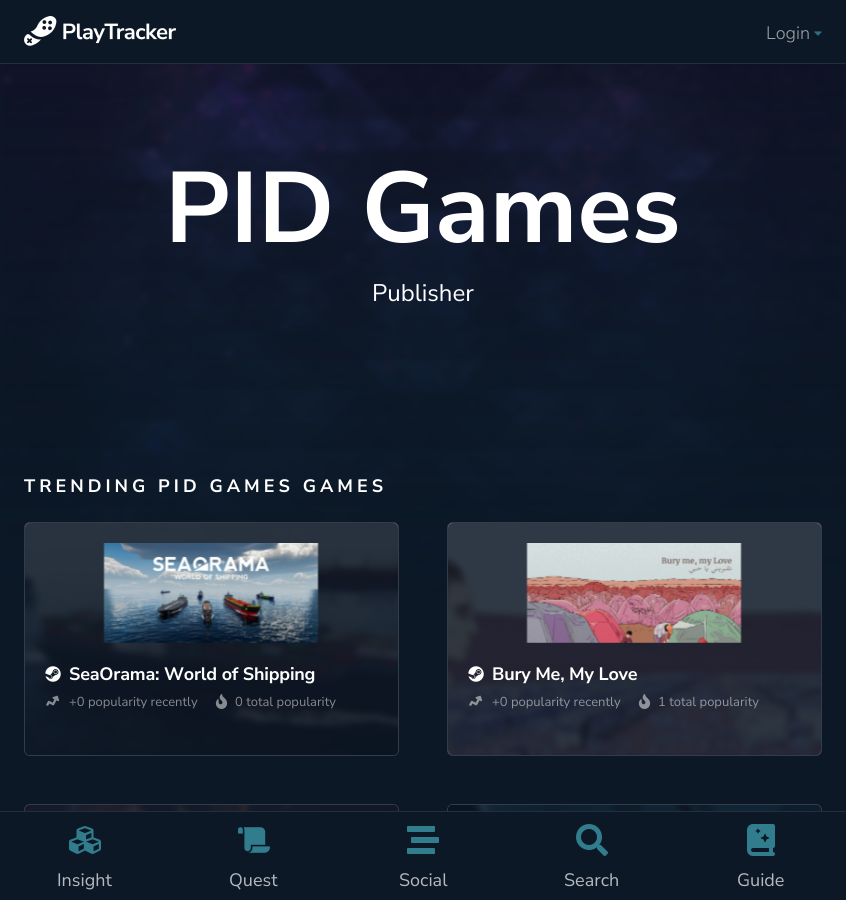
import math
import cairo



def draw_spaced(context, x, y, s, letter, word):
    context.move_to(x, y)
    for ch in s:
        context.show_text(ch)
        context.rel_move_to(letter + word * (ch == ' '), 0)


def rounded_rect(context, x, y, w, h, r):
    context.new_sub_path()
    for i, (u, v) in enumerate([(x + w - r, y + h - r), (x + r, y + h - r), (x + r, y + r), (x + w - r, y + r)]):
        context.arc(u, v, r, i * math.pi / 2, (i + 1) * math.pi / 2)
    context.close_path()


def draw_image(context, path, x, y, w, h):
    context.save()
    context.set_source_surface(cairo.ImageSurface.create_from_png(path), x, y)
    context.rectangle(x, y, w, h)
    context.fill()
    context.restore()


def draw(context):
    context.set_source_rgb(12 / 255, 24 / 255, 38 / 255)
    context.paint()
    context.set_source_rgb(36 / 255, 47 / 255, 60 / 255)
    context.rectangle(0, 63, 846, 1)
    context.fill()
    draw_image(context, "images/1.png", 24, 16, 152, 30)
    draw_image(context, "images/2.png", 814, 31, 8, 5)
    draw_image(context, "images/3.png", 0, 64, 846, 537)
    gradient = cairo.LinearGradient(423, 608, 423, -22)
    gradient.add_color_stop_rgba(0, 12 / 255, 24 / 255, 38 / 255, 1)
    gradient.add_color_stop_rgba(1, 12 / 255, 24 / 255, 38 / 255, 0.1)
    context.set_source(gradient)
    context.rectangle(0, 64, 846, 537)
    context.fill()
    context.set_source_rgb(27 / 255, 40 / 255, 56 / 255)
    rounded_rect(context, 24, 522, 375, 234, 6)
    context.fill()
    rounded_rect(context, 24.5, 522.5, 374, 233, 5.5)
    context.set_source_rgba(1, 1, 1, 0.1)
    context.set_line_width(1)
    context.stroke()
    draw_image(context, "images/4.png", 25, 523, 373, 232)
    context.set_source_rgba(13 / 255, 24 / 255, 38 / 255, 0.85)
    rounded_rect(context, 25, 523, 373, 232, 5)
    context.fill()
    draw_image(context, "images/5.png", 103, 543, 216, 100)
    draw_image(context, "images/6.png", 45, 666, 16, 16)
    draw_image(context, "images/7.png", 46, 695, 14, 11)
    draw_image(context, "images/8.png", 215, 694, 13, 15)
    context.set_source_rgb(27 / 255, 40 / 255, 56 / 255)
    rounded_rect(context, 447, 522, 375, 234, 6)
    context.fill()
    rounded_rect(context, 447.5, 522.5, 374, 233, 5.5)
    context.set_source_rgba(1, 1, 1, 0.1)
    context.stroke()
    draw_image(context, "images/9.png", 448, 523, 373, 232)
    context.set_source_rgba(13 / 255, 24 / 255, 38 / 255, 0.85)
    rounded_rect(context, 448, 523, 373, 232, 5)
    context.fill()
    draw_image(context, "images/10.png", 526, 543, 216, 100)
    draw_image(context, "images/11.png", 468, 666, 16, 16)
    draw_image(context, "images/12.png", 469, 695, 14, 11)
    draw_image(context, "images/13.png", 638, 694, 13, 15)
    context.set_source_rgb(27 / 255, 40 / 255, 56 / 255)
    rounded_rect(context, 24, 804, 375, 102, 6)
    context.fill()
    rounded_rect(context, 24.5, 804.5, 374, 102, 5.5)
    context.set_source_rgba(1, 1, 1, 0.1)
    context.stroke()
    draw_image(context, "images/14.png", 25, 805, 373, 6)
    context.set_source_rgba(13 / 255, 24 / 255, 38 / 255, 0.85)
    rounded_rect(context, 25, 805, 373, 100, 5)
    context.fill()
    context.set_source_rgb(27 / 255, 40 / 255, 56 / 255)
    rounded_rect(context, 447, 804, 375, 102, 6)
    context.fill()
    rounded_rect(context, 447.5, 804.5, 374, 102, 5.5)
    context.set_source_rgba(1, 1, 1, 0.1)
    context.stroke()
    draw_image(context, "images/15.png", 448, 805, 373, 6)
    context.set_source_rgba(13 / 255, 24 / 255, 38 / 255, 0.85)
    rounded_rect(context, 448, 805, 373, 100, 5)
    context.fill()
    context.set_source_rgb(12 / 255, 24 / 255, 38 / 255)
    context.rectangle(24, 812, 798, 88)
    context.fill()
    context.set_source_rgb(36 / 255, 47 / 255, 60 / 255)
    context.rectangle(0, 811, 846, 1)
    context.fill()
    draw_image(context, "images/16.png", 69, 826, 32, 28)
    draw_image(context, "images/17.png", 238, 827, 32, 26)
    draw_image(context, "images/18.png", 407, 826, 32, 28)
    draw_image(context, "images/19.png", 576, 824, 32, 32)
    draw_image(context, "images/20.png", 747, 824, 28, 32)
    context.select_font_face("Nunito Sans Light")
    context.set_font_size(18)
    context.set_source_rgb(158 / 255, 163 / 255, 168 / 255)
    context.move_to(766, 39)
    context.show_text("Login")
    context.select_font_face("Nunito Sans", cairo.FontSlant.NORMAL, cairo.FontWeight.BOLD)
    context.set_font_size(100)
    context.set_source_rgb(1, 1, 1)
    context.move_to(165, 242)
    context.show_text("PID Games")
    context.select_font_face("Nunito Sans")
    context.set_font_size(24)
    context.move_to(372, 301)
    context.show_text("Publisher")
    context.select_font_face("Nunito Sans", cairo.FontSlant.NORMAL, cairo.FontWeight.BOLD)
    context.set_font_size(18)
    draw_spaced(context, 24, 492, "TRENDING PID GAMES GAMES", 4, 0)
    draw_spaced(context, 69, 680, "SeaOrama: World of Shipping", -0.2, 0)
    context.select_font_face("Nunito Sans")
    context.set_font_size(13)
    context.set_source_rgb(134 / 255, 138 / 255, 144 / 255)
    context.move_to(69, 706)
    context.show_text("+0 popularity recently")
    context.move_to(235, 706)
    context.show_text("0 total popularity")
    context.select_font_face("Nunito Sans", cairo.FontSlant.NORMAL, cairo.FontWeight.BOLD)
    context.set_font_size(18)
    context.set_source_rgb(1, 1, 1)
    draw_spaced(context, 492, 680, "Bury Me, My Love", -0.2, 0)
    context.select_font_face("Nunito Sans")
    context.set_font_size(13)
    context.set_source_rgb(144 / 255, 148 / 255, 156 / 255)
    context.move_to(492, 706)
    context.show_text("+0 popularity recently")
    context.move_to(658, 706)
    context.show_text("1 total popularity")
    context.set_font_size(18)
    context.set_source_rgb(182 / 255, 186 / 255, 190 / 255)
    context.move_to(57, 886)
    context.show_text("Insight")
    context.move_to(229, 886)
    context.show_text("Quest")
    context.move_to(399, 886)
    context.show_text("Social")
    context.move_to(564, 886)
    context.show_text("Search")
    context.move_to(737, 886)
    context.show_text("Guide")


surface = cairo.ImageSurface(cairo.Format.RGB24, 846, 900)
context = cairo.Context(surface)
options = cairo.FontOptions()
options.set_hint_metrics(cairo.HintMetrics.OFF)
options.set_hint_style(cairo.HintStyle.NONE)
context.set_font_options(options)
context.set_miter_limit(4)
draw(context)
surface.write_to_png("out.png")
